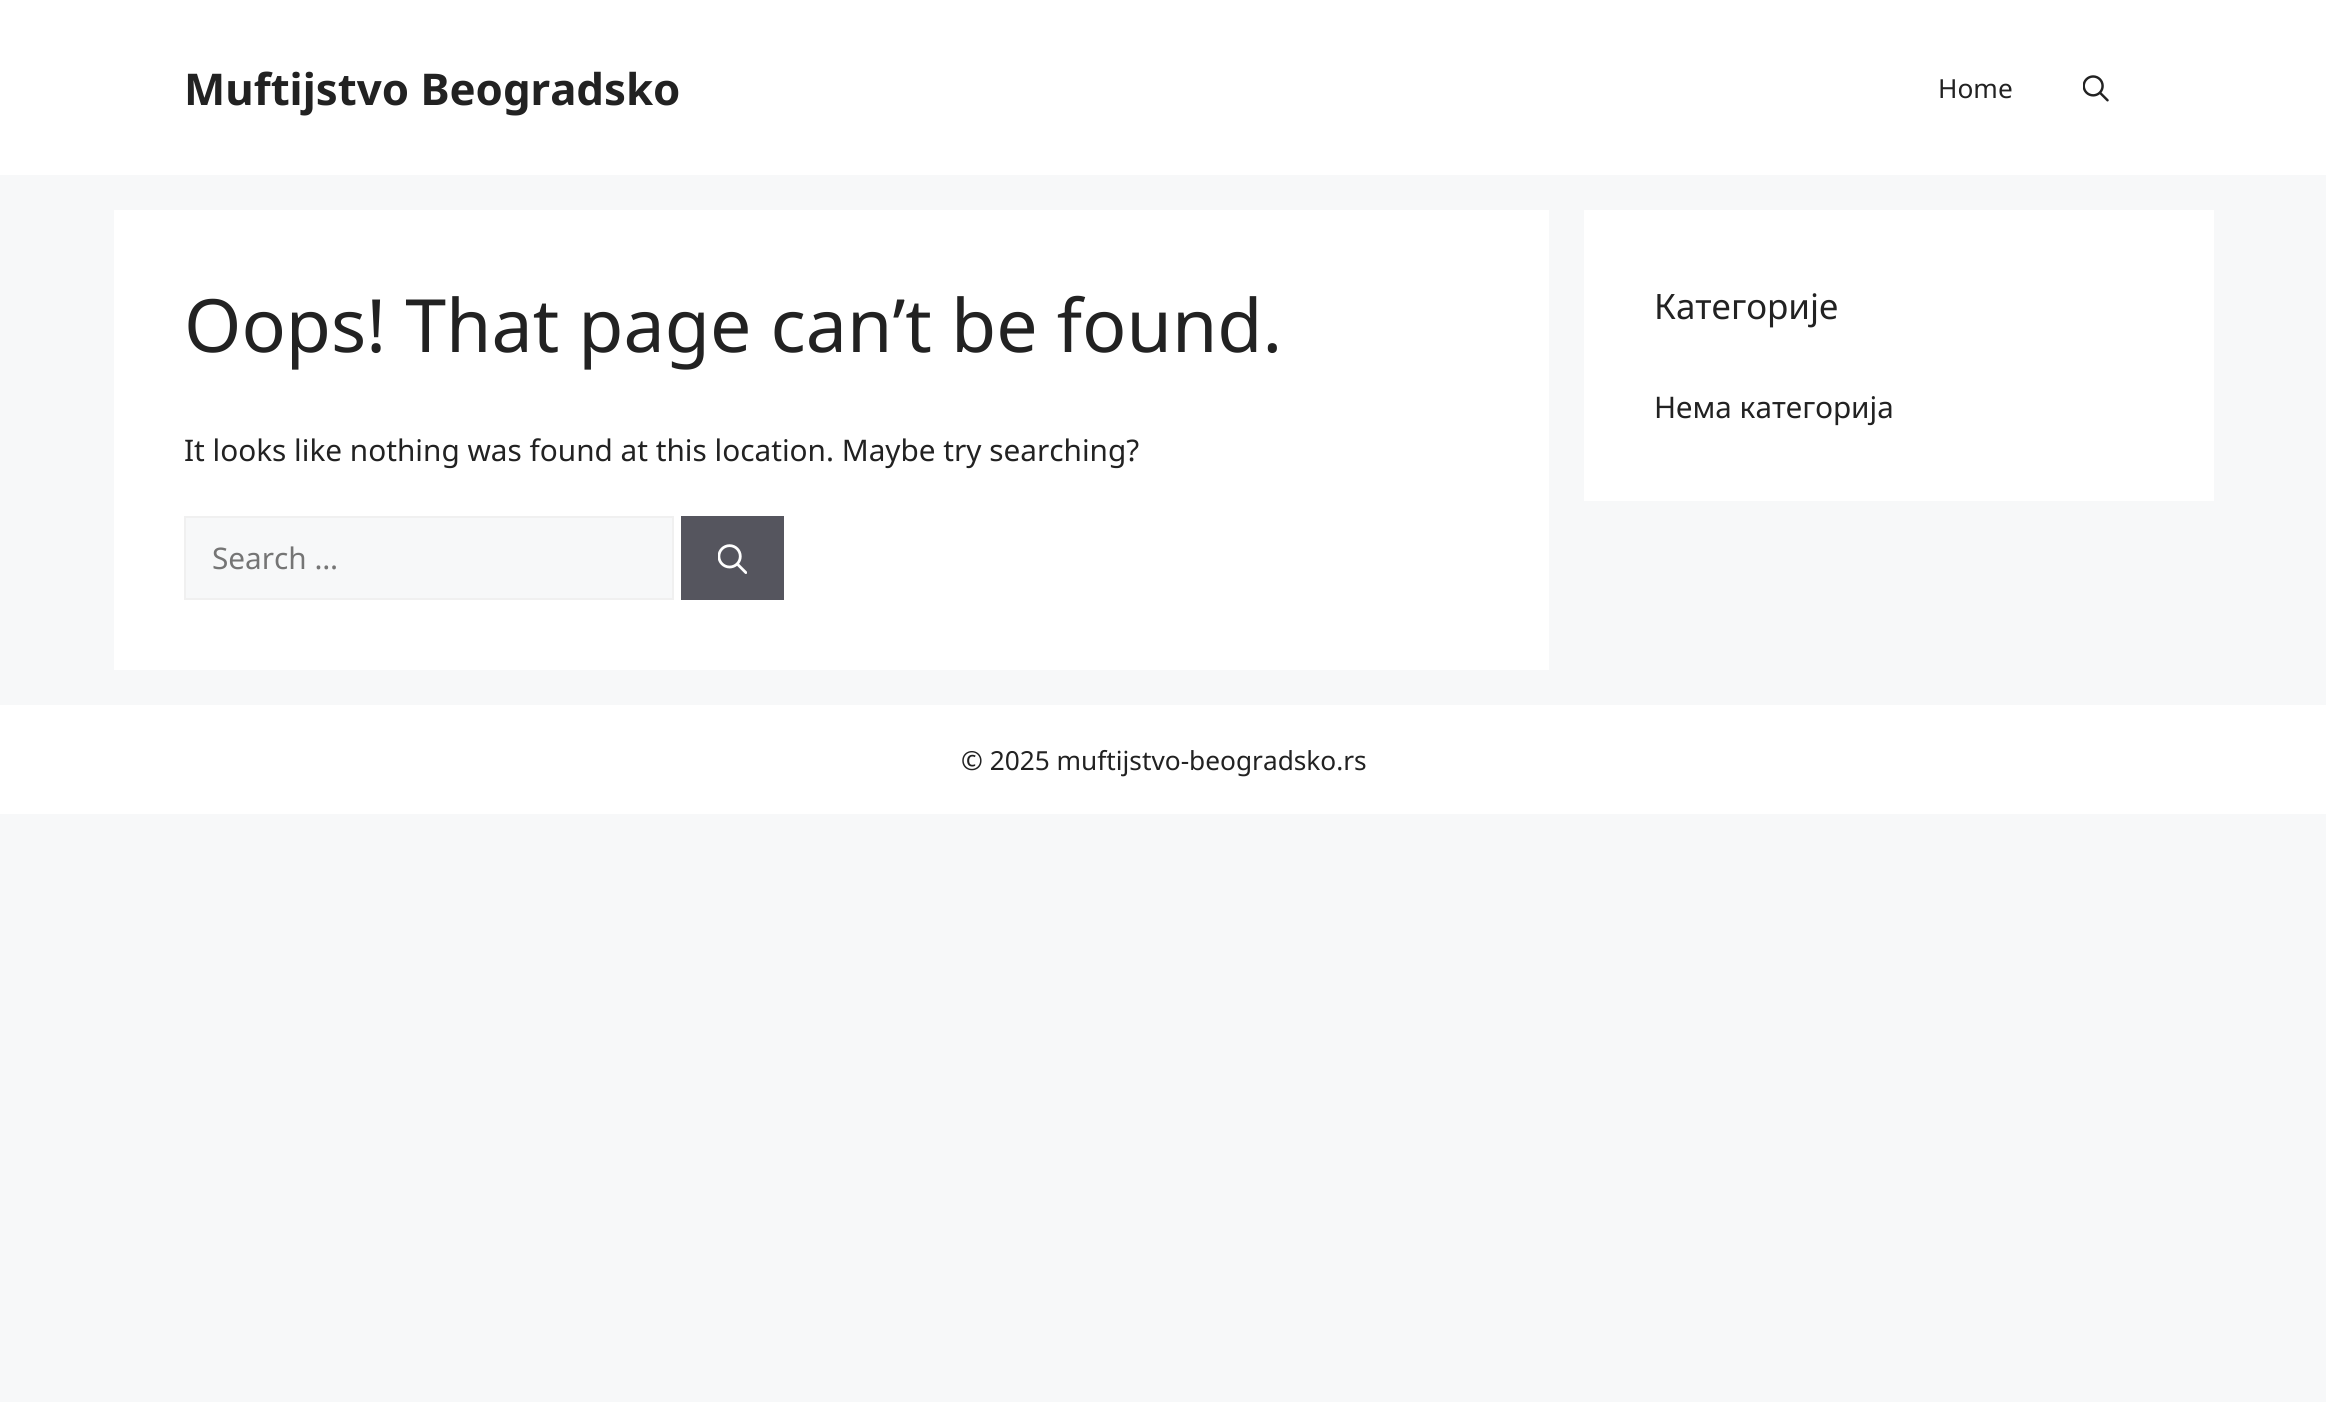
import math
import cairo



def draw_image(context, path, x, y, w, h):
    context.save()
    context.set_source_surface(cairo.ImageSurface.create_from_png(path), x, y)
    context.rectangle(x, y, w, h)
    context.fill()
    context.restore()


def draw(context):
    context.set_source_rgb(247 / 255, 248 / 255, 249 / 255)
    context.paint()
    context.set_source_rgb(1, 1, 1)
    context.rectangle(0, 0, 2326, 175)
    context.fill()
    draw_image(context, "images/1.png", 2083, 75, 26, 27)
    context.rectangle(114, 210, 1435, 460)
    context.fill()
    context.set_source_rgb(247 / 255, 248 / 255, 249 / 255)
    context.rectangle(185, 517, 488, 82)
    context.fill_preserve()
    context.set_source_rgb(240 / 255, 240 / 255, 240 / 255)
    context.stroke()
    context.set_source_rgb(85 / 255, 85 / 255, 94 / 255)
    context.rectangle(681, 516, 103, 84)
    context.fill()
    draw_image(context, "images/2.png", 718, 544, 29, 30)
    context.set_source_rgb(1, 1, 1)
    context.rectangle(1584, 210, 630, 291)
    context.fill()
    context.rectangle(0, 705, 2326, 109)
    context.fill()
    context.select_font_face("Noto Sans", cairo.FontSlant.NORMAL, cairo.FontWeight.BOLD)
    context.set_font_size(43.75)
    context.set_source_rgb(34 / 255, 34 / 255, 34 / 255)
    context.move_to(184, 105)
    context.show_text("Muftijstvo Beogradsko")
    context.select_font_face("Noto Sans")
    context.set_font_size(26.25)
    context.move_to(1938, 98)
    context.show_text("Home")
    context.set_font_size(73.5)
    context.move_to(184, 352)
    context.show_text("Oops! That page can’t be found.")
    context.set_font_size(29.75)
    context.move_to(184, 461)
    context.show_text("It looks like nothing was found at this location. Maybe try searching?")
    context.set_source_rgb(117 / 255, 117 / 255, 117 / 255)
    context.move_to(212, 569)
    context.show_text("Search …")
    context.set_font_size(35)
    context.set_source_rgb(34 / 255, 34 / 255, 34 / 255)
    context.move_to(1654, 319)
    context.show_text("Категорије")
    context.set_font_size(29.75)
    context.move_to(1654, 418)
    context.show_text("Нема категорија")
    context.set_font_size(26.25)
    context.move_to(961, 770)
    context.show_text("© 2025 muftijstvo-beogradsko.rs")


surface = cairo.ImageSurface(cairo.Format.RGB24, 2326, 1402)
context = cairo.Context(surface)
options = cairo.FontOptions()
options.set_hint_metrics(cairo.HintMetrics.OFF)
options.set_hint_style(cairo.HintStyle.NONE)
context.set_font_options(options)
context.set_miter_limit(4)
draw(context)
surface.write_to_png("out.png")
